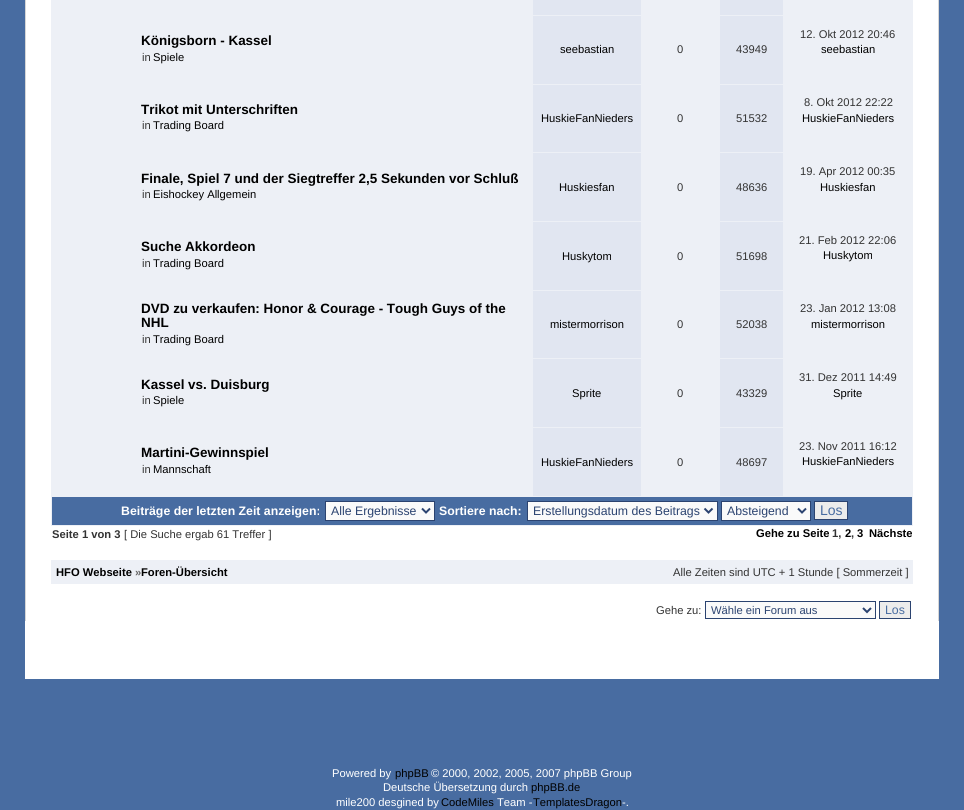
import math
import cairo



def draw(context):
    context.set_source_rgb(72 / 255, 108 / 255, 161 / 255)
    context.paint()
    context.set_source_rgb(1, 1, 1)
    context.rectangle(25, 0, 914, 679)
    context.fill()
    context.set_source_rgb(214 / 255, 214 / 255, 214 / 255)
    context.rectangle(938, 0, 1, 621)
    context.fill()
    context.rectangle(25, 0, 1, 621)
    context.fill()
    context.set_source_rgb(237 / 255, 240 / 255, 246 / 255)
    context.rectangle(51, 0, 862, 526)
    context.fill()
    context.set_source_rgb(225 / 255, 230 / 255, 241 / 255)
    context.rectangle(533, 0, 108, 15)
    context.fill()
    context.rectangle(720, 0, 63, 15)
    context.fill()
    context.rectangle(533, 16, 108, 68)
    context.fill()
    context.rectangle(720, 16, 63, 68)
    context.fill()
    context.rectangle(533, 85, 108, 67)
    context.fill()
    context.rectangle(720, 85, 63, 67)
    context.fill()
    context.rectangle(533, 153, 108, 68)
    context.fill()
    context.rectangle(720, 153, 63, 68)
    context.fill()
    context.rectangle(533, 222, 108, 68)
    context.fill()
    context.rectangle(720, 222, 63, 68)
    context.fill()
    context.rectangle(533, 291, 108, 67)
    context.fill()
    context.rectangle(720, 291, 63, 67)
    context.fill()
    context.rectangle(533, 359, 108, 68)
    context.fill()
    context.rectangle(720, 359, 63, 68)
    context.fill()
    context.rectangle(533, 428, 108, 68)
    context.fill()
    context.rectangle(720, 428, 63, 68)
    context.fill()
    context.set_source_rgb(72 / 255, 108 / 255, 161 / 255)
    context.rectangle(52, 497, 860, 28)
    context.fill()
    context.set_source_rgb(250 / 255, 250 / 255, 250 / 255)
    context.rectangle(325.5, 501.5, 109, 19)
    context.fill_preserve()
    context.set_source_rgb(43 / 255, 67 / 255, 112 / 255)
    context.set_line_width(1)
    context.stroke()
    context.new_path()
    context.move_to(422, 508.5)
    context.line_to(426, 512.5)
    context.line_to(430, 508.5)
    context.set_line_width(2)
    context.stroke()
    context.set_source_rgb(250 / 255, 250 / 255, 250 / 255)
    context.rectangle(527.5, 501.5, 190, 19)
    context.fill_preserve()
    context.set_source_rgb(43 / 255, 67 / 255, 112 / 255)
    context.set_line_width(1)
    context.stroke()
    context.new_path()
    context.move_to(704.5, 508.5)
    context.line_to(708.5, 512.5)
    context.line_to(712.5, 508.5)
    context.set_line_width(2)
    context.stroke()
    context.set_source_rgb(250 / 255, 250 / 255, 250 / 255)
    context.rectangle(721.5, 501.5, 89, 19)
    context.fill_preserve()
    context.set_source_rgb(43 / 255, 67 / 255, 112 / 255)
    context.set_line_width(1)
    context.stroke()
    context.new_path()
    context.move_to(798, 508.5)
    context.line_to(802, 512.5)
    context.line_to(806, 508.5)
    context.set_line_width(2)
    context.stroke()
    context.set_source_rgb(236 / 255, 236 / 255, 236 / 255)
    context.rectangle(814.5, 501.5, 33, 18)
    context.fill_preserve()
    context.set_source_rgb(43 / 255, 67 / 255, 112 / 255)
    context.set_line_width(1)
    context.stroke()
    context.set_source_rgb(237 / 255, 240 / 255, 246 / 255)
    context.rectangle(51, 560, 862, 24)
    context.fill()
    context.set_source_rgb(250 / 255, 250 / 255, 250 / 255)
    context.rectangle(705.5, 601.5, 170, 17)
    context.fill_preserve()
    context.set_source_rgb(43 / 255, 67 / 255, 112 / 255)
    context.stroke()
    context.new_path()
    context.move_to(863, 608)
    context.line_to(867, 612)
    context.line_to(871, 608)
    context.set_line_width(2)
    context.stroke()
    context.set_source_rgb(236 / 255, 236 / 255, 236 / 255)
    context.rectangle(879.5, 601.5, 31, 17)
    context.fill_preserve()
    context.set_source_rgb(43 / 255, 67 / 255, 112 / 255)
    context.set_line_width(1)
    context.stroke()
    context.select_font_face("Liberation Sans", cairo.FontSlant.NORMAL, cairo.FontWeight.BOLD)
    context.set_font_size(13.45)
    context.set_source_rgb(0, 0, 0)
    context.move_to(141, 45)
    context.show_text("Königsborn - Kassel")
    context.select_font_face("Liberation Sans")
    context.set_font_size(11.2)
    context.set_source_rgb(51 / 255, 51 / 255, 51 / 255)
    context.move_to(142, 61)
    context.show_text("in")
    context.set_source_rgb(0, 0, 0)
    context.move_to(153, 61)
    context.show_text("Spiele")
    context.move_to(560, 53)
    context.show_text("seebastian")
    context.set_source_rgb(51 / 255, 51 / 255, 51 / 255)
    context.move_to(677, 53)
    context.show_text("0")
    context.move_to(736, 53)
    context.show_text("43949")
    context.move_to(800, 38)
    context.show_text("12. Okt 2012 20:46")
    context.set_source_rgb(0, 0, 0)
    context.move_to(821, 53)
    context.show_text("seebastian")
    context.select_font_face("Liberation Sans", cairo.FontSlant.NORMAL, cairo.FontWeight.BOLD)
    context.set_font_size(13.45)
    context.move_to(141, 114)
    context.show_text("Trikot mit Unterschriften")
    context.select_font_face("Liberation Sans")
    context.set_font_size(11.2)
    context.set_source_rgb(51 / 255, 51 / 255, 51 / 255)
    context.move_to(142, 129)
    context.show_text("in")
    context.set_source_rgb(0, 0, 0)
    context.move_to(153, 129)
    context.show_text("Trading Board")
    context.move_to(541, 122)
    context.show_text("HuskieFanNieders")
    context.set_source_rgb(51 / 255, 51 / 255, 51 / 255)
    context.move_to(677, 122)
    context.show_text("0")
    context.move_to(736, 122)
    context.show_text("51532")
    context.move_to(804, 106)
    context.show_text("8. Okt 2012 22:22")
    context.set_source_rgb(0, 0, 0)
    context.move_to(802, 122)
    context.show_text("HuskieFanNieders")
    context.select_font_face("Liberation Sans", cairo.FontSlant.NORMAL, cairo.FontWeight.BOLD)
    context.set_font_size(13.45)
    context.move_to(141, 183)
    context.show_text("Finale, Spiel 7 und der Siegtreffer 2,5 Sekunden vor Schluß")
    context.select_font_face("Liberation Sans")
    context.set_font_size(11.2)
    context.set_source_rgb(51 / 255, 51 / 255, 51 / 255)
    context.move_to(142, 198)
    context.show_text("in")
    context.set_source_rgb(0, 0, 0)
    context.move_to(153, 198)
    context.show_text("Eishockey Allgemein")
    context.move_to(559, 191)
    context.show_text("Huskiesfan")
    context.set_source_rgb(51 / 255, 51 / 255, 51 / 255)
    context.move_to(677, 191)
    context.show_text("0")
    context.move_to(736, 191)
    context.show_text("48636")
    context.move_to(800, 175)
    context.show_text("19. Apr 2012 00:35")
    context.set_source_rgb(0, 0, 0)
    context.move_to(820, 191)
    context.show_text("Huskiesfan")
    context.select_font_face("Liberation Sans", cairo.FontSlant.NORMAL, cairo.FontWeight.BOLD)
    context.set_font_size(13.45)
    context.move_to(141, 251)
    context.show_text("Suche Akkordeon")
    context.select_font_face("Liberation Sans")
    context.set_font_size(11.2)
    context.set_source_rgb(51 / 255, 51 / 255, 51 / 255)
    context.move_to(142, 267)
    context.show_text("in")
    context.set_source_rgb(0, 0, 0)
    context.move_to(153, 267)
    context.show_text("Trading Board")
    context.move_to(562, 260)
    context.show_text("Huskytom")
    context.set_source_rgb(51 / 255, 51 / 255, 51 / 255)
    context.move_to(677, 260)
    context.show_text("0")
    context.move_to(736, 260)
    context.show_text("51698")
    context.move_to(799, 244)
    context.show_text("21. Feb 2012 22:06")
    context.set_source_rgb(0, 0, 0)
    context.move_to(823, 259)
    context.show_text("Huskytom")
    context.select_font_face("Liberation Sans", cairo.FontSlant.NORMAL, cairo.FontWeight.BOLD)
    context.set_font_size(13.45)
    context.move_to(141, 313)
    context.show_text("DVD zu verkaufen: Honor & Courage - Tough Guys of the")
    context.move_to(141, 327)
    context.show_text("NHL")
    context.select_font_face("Liberation Sans")
    context.set_font_size(11.2)
    context.set_source_rgb(51 / 255, 51 / 255, 51 / 255)
    context.move_to(142, 343)
    context.show_text("in")
    context.set_source_rgb(0, 0, 0)
    context.move_to(153, 343)
    context.show_text("Trading Board")
    context.move_to(550, 328)
    context.show_text("mistermorrison")
    context.set_source_rgb(51 / 255, 51 / 255, 51 / 255)
    context.move_to(677, 328)
    context.show_text("0")
    context.move_to(736, 328)
    context.show_text("52038")
    context.move_to(800, 312)
    context.show_text("23. Jan 2012 13:08")
    context.set_source_rgb(0, 0, 0)
    context.move_to(811, 328)
    context.show_text("mistermorrison")
    context.select_font_face("Liberation Sans", cairo.FontSlant.NORMAL, cairo.FontWeight.BOLD)
    context.set_font_size(13.45)
    context.move_to(141, 389)
    context.show_text("Kassel vs. Duisburg")
    context.select_font_face("Liberation Sans")
    context.set_font_size(11.2)
    context.set_source_rgb(51 / 255, 51 / 255, 51 / 255)
    context.move_to(142, 404)
    context.show_text("in")
    context.set_source_rgb(0, 0, 0)
    context.move_to(153, 404)
    context.show_text("Spiele")
    context.move_to(572, 397)
    context.show_text("Sprite")
    context.set_source_rgb(51 / 255, 51 / 255, 51 / 255)
    context.move_to(677, 397)
    context.show_text("0")
    context.move_to(736, 397)
    context.show_text("43329")
    context.move_to(799, 381)
    context.show_text("31. Dez 2011 14:49")
    context.set_source_rgb(0, 0, 0)
    context.move_to(833, 397)
    context.show_text("Sprite")
    context.select_font_face("Liberation Sans", cairo.FontSlant.NORMAL, cairo.FontWeight.BOLD)
    context.set_font_size(13.45)
    context.move_to(141, 457)
    context.show_text("Martini-Gewinnspiel")
    context.select_font_face("Liberation Sans")
    context.set_font_size(11.2)
    context.set_source_rgb(51 / 255, 51 / 255, 51 / 255)
    context.move_to(142, 473)
    context.show_text("in")
    context.set_source_rgb(0, 0, 0)
    context.move_to(153, 473)
    context.show_text("Mannschaft")
    context.move_to(541, 466)
    context.show_text("HuskieFanNieders")
    context.set_source_rgb(51 / 255, 51 / 255, 51 / 255)
    context.move_to(677, 466)
    context.show_text("0")
    context.move_to(736, 466)
    context.show_text("48697")
    context.move_to(799, 450)
    context.show_text("23. Nov 2011 16:12")
    context.set_source_rgb(0, 0, 0)
    context.move_to(802, 465)
    context.show_text("HuskieFanNieders")
    context.select_font_face("Liberation Sans", cairo.FontSlant.NORMAL, cairo.FontWeight.BOLD)
    context.set_font_size(12.3)
    context.set_source_rgb(1, 1, 1)
    context.move_to(121, 515)
    context.show_text("Beiträge der letzten Zeit anzeigen:")
    context.select_font_face("Liberation Sans")
    context.set_source_rgb(43 / 255, 67 / 255, 112 / 255)
    context.move_to(331, 515)
    context.show_text("Alle Ergebnisse")
    context.select_font_face("Liberation Sans", cairo.FontSlant.NORMAL, cairo.FontWeight.BOLD)
    context.set_source_rgb(1, 1, 1)
    context.move_to(439, 515)
    context.show_text("Sortiere nach:")
    context.select_font_face("Liberation Sans")
    context.set_source_rgb(43 / 255, 67 / 255, 112 / 255)
    context.move_to(533, 515)
    context.show_text("Erstellungsdatum des Beitrags")
    context.move_to(727, 515)
    context.show_text("Absteigend")
    context.set_font_size(14)
    context.set_source_rgb(72 / 255, 108 / 255, 161 / 255)
    context.move_to(820, 515)
    context.show_text("Los")
    context.select_font_face("Liberation Sans", cairo.FontSlant.NORMAL, cairo.FontWeight.BOLD)
    context.set_font_size(11.2)
    context.set_source_rgb(51 / 255, 51 / 255, 51 / 255)
    context.move_to(52, 538)
    context.show_text("Seite 1 von 3")
    context.select_font_face("Liberation Sans")
    context.move_to(124, 538)
    context.show_text("[ Die Suche ergab 61 Treffer ]")
    context.select_font_face("Liberation Sans", cairo.FontSlant.NORMAL, cairo.FontWeight.BOLD)
    context.set_source_rgb(0, 0, 0)
    context.move_to(756, 537)
    context.show_text("Gehe zu Seite")
    context.set_source_rgb(51 / 255, 51 / 255, 51 / 255)
    context.move_to(832, 537)
    context.show_text("1,")
    context.set_source_rgb(0, 0, 0)
    context.move_to(845, 537)
    context.show_text("2")
    context.set_source_rgb(51 / 255, 51 / 255, 51 / 255)
    context.move_to(851, 537)
    context.show_text(",")
    context.set_source_rgb(0, 0, 0)
    context.move_to(857, 537)
    context.show_text("3")
    context.move_to(869, 537)
    context.show_text("Nächste")
    context.move_to(56, 576)
    context.show_text("HFO Webseite")
    context.set_source_rgb(102 / 255, 102 / 255, 102 / 255)
    context.move_to(135, 576)
    context.show_text("»")
    context.set_source_rgb(0, 0, 0)
    context.move_to(141, 576)
    context.show_text("Foren-Übersicht")
    context.select_font_face("Liberation Sans")
    context.set_source_rgb(51 / 255, 51 / 255, 51 / 255)
    context.move_to(673, 576)
    context.show_text("Alle Zeiten sind UTC + 1 Stunde [ Sommerzeit ]")
    context.move_to(656, 614)
    context.show_text("Gehe zu:")
    context.set_source_rgb(43 / 255, 67 / 255, 112 / 255)
    context.move_to(711, 614)
    context.show_text("Wähle ein Forum aus")
    context.set_font_size(12.3)
    context.set_source_rgb(72 / 255, 108 / 255, 161 / 255)
    context.move_to(885, 614)
    context.show_text("Los")
    context.set_font_size(11.2)
    context.set_source_rgb(1, 1, 1)
    context.move_to(332, 777)
    context.show_text("Powered by")
    context.set_source_rgb(0, 0, 0)
    context.move_to(395, 777)
    context.show_text("phpBB")
    context.set_source_rgb(1, 1, 1)
    context.move_to(431, 777)
    context.show_text("© 2000, 2002, 2005, 2007 phpBB Group")
    context.move_to(383, 791)
    context.show_text("Deutsche Übersetzung durch")
    context.set_source_rgb(0, 0, 0)
    context.move_to(531, 791)
    context.show_text("phpBB.de")
    context.set_source_rgb(1, 1, 1)
    context.move_to(336, 806)
    context.show_text("mile200 desgined by")
    context.set_source_rgb(0, 0, 0)
    context.move_to(441, 806)
    context.show_text("CodeMiles")
    context.set_source_rgb(1, 1, 1)
    context.move_to(497, 806)
    context.show_text("Team -")
    context.set_source_rgb(0, 0, 0)
    context.move_to(533, 806)
    context.show_text("TemplatesDragon")
    context.set_source_rgb(1, 1, 1)
    context.move_to(622, 806)
    context.show_text("-.")


surface = cairo.ImageSurface(cairo.Format.RGB24, 964, 810)
context = cairo.Context(surface)
options = cairo.FontOptions()
options.set_hint_metrics(cairo.HintMetrics.OFF)
options.set_hint_style(cairo.HintStyle.NONE)
context.set_font_options(options)
context.set_miter_limit(4)
draw(context)
surface.write_to_png("out.png")
